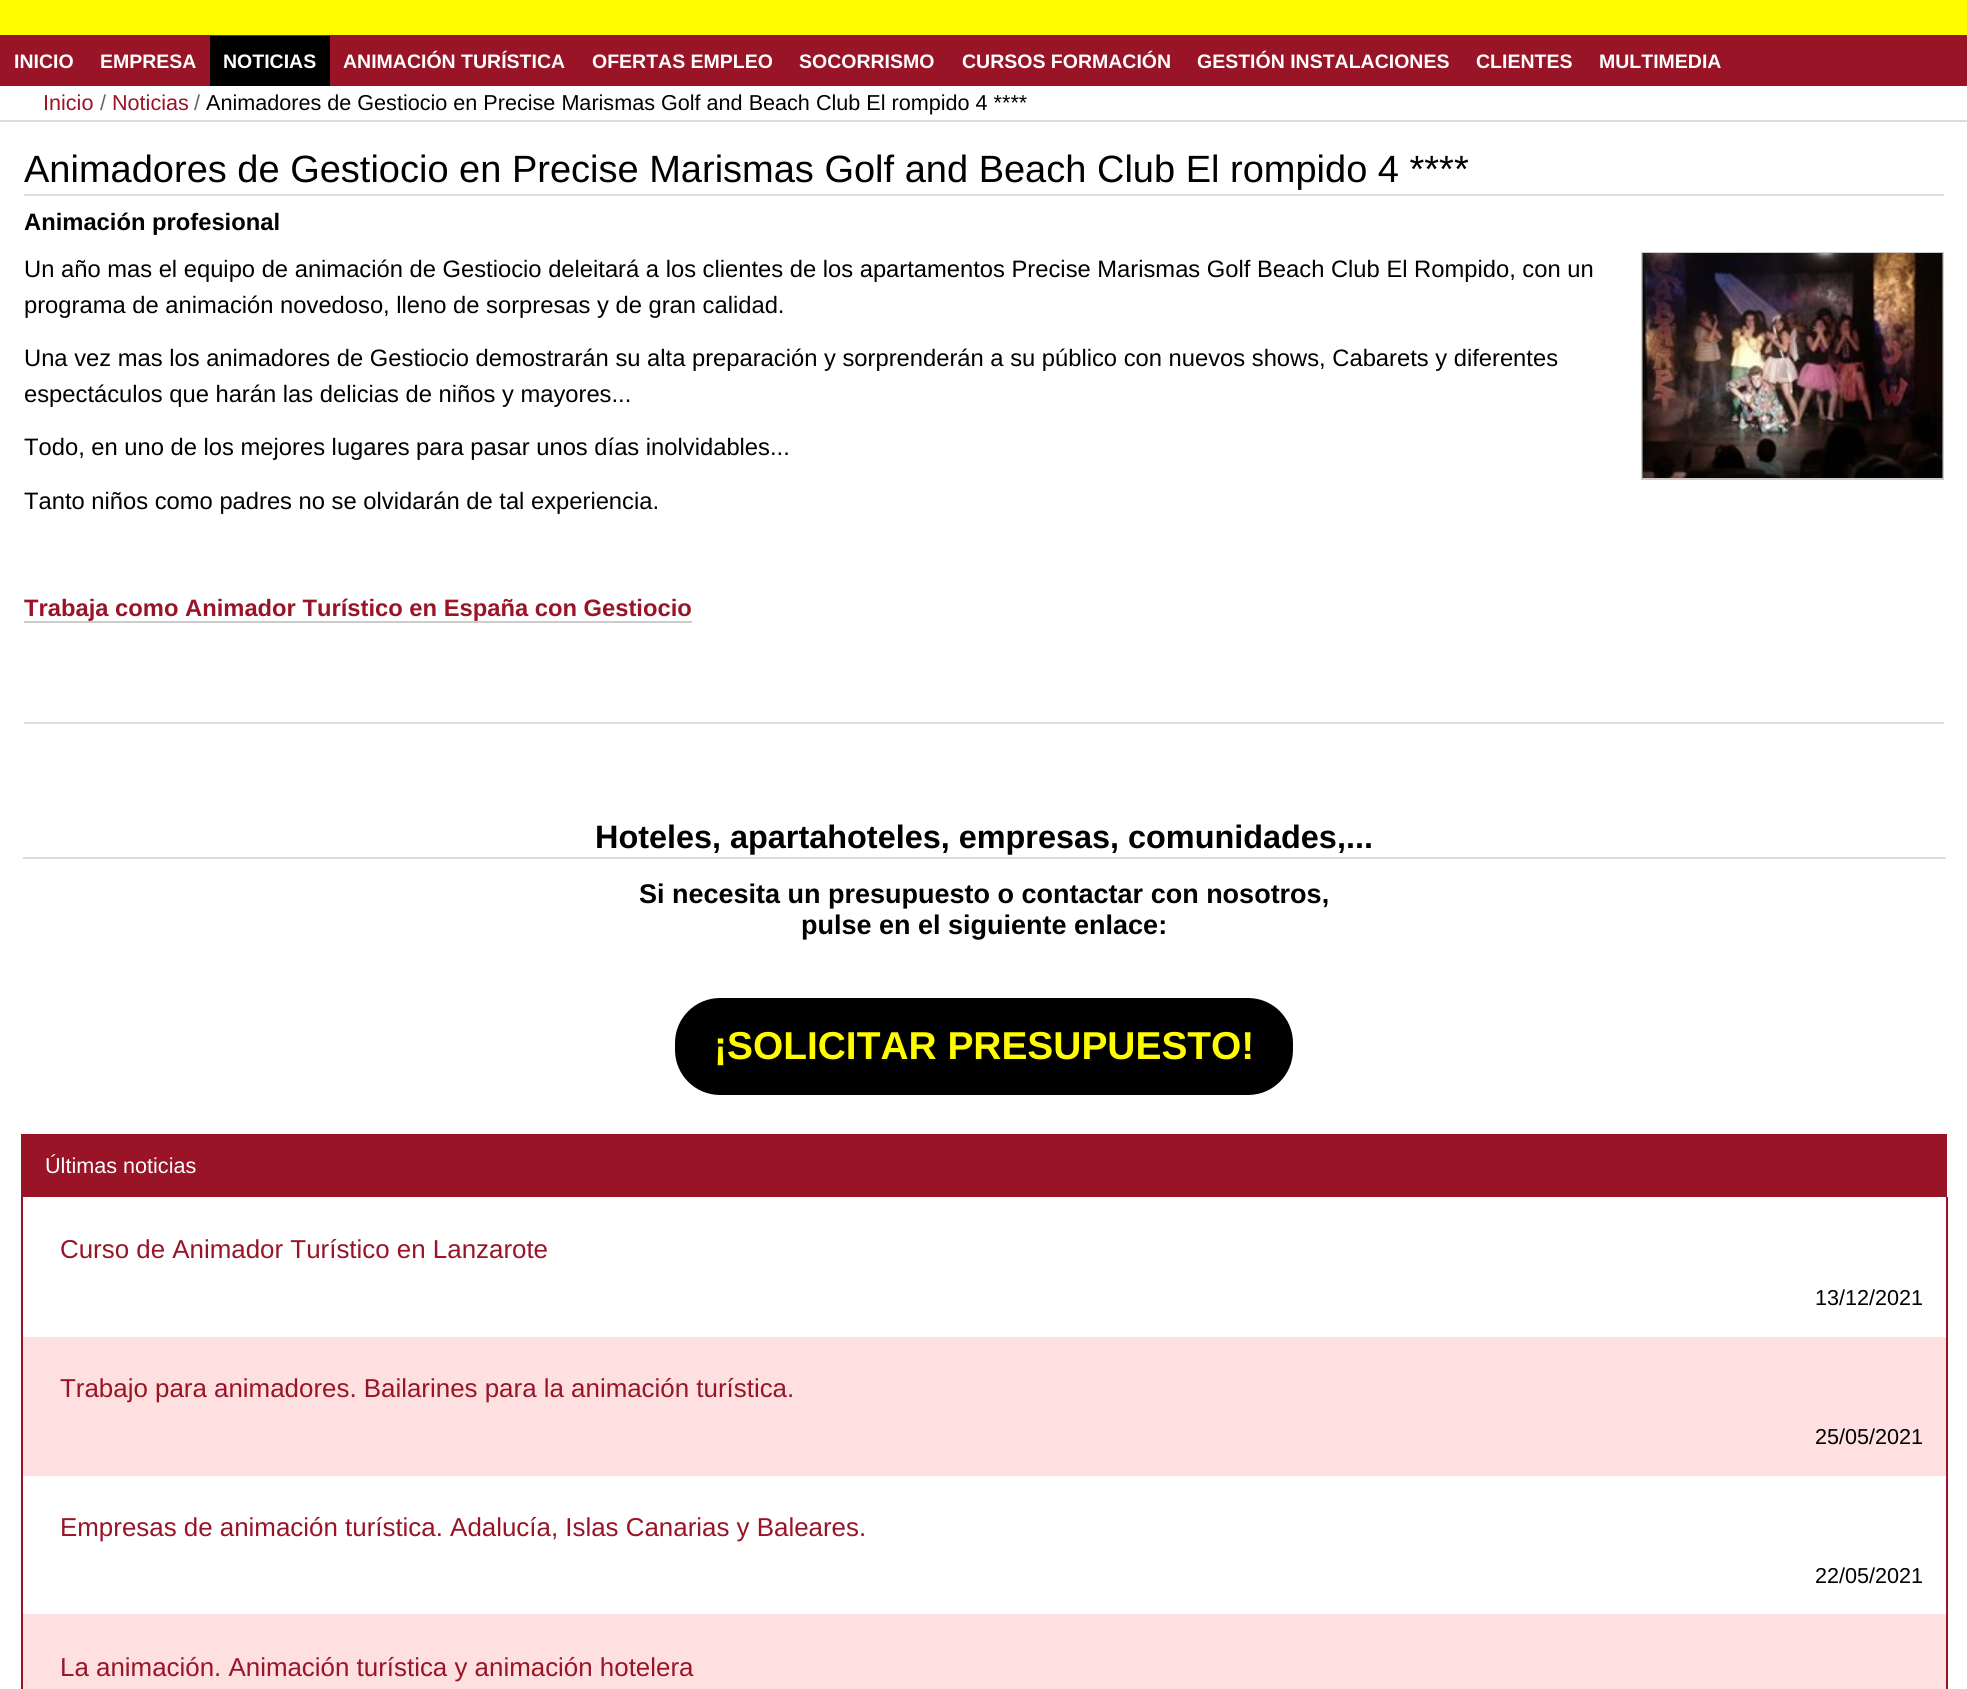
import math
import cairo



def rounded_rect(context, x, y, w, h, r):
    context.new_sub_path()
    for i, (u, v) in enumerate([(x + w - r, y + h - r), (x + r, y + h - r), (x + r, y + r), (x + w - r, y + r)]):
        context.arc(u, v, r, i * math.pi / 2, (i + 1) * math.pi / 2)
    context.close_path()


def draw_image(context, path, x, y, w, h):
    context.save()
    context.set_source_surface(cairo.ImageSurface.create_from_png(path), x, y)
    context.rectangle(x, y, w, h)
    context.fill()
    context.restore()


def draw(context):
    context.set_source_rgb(1, 1, 1)
    context.paint()
    context.set_source_rgb(1, 252 / 255, 0)
    context.rectangle(0, 0, 1967, 35)
    context.fill()
    context.set_source_rgb(153 / 255, 20 / 255, 39 / 255)
    context.rectangle(0, 35, 1967, 51)
    context.fill()
    context.set_source_rgb(0, 0, 0)
    context.rectangle(210, 36, 120, 50)
    context.fill()
    context.set_source_rgb(221 / 255, 221 / 255, 221 / 255)
    context.rectangle(0, 120, 1967, 2)
    context.fill()
    context.rectangle(24, 194, 1920, 2)
    context.fill()
    context.set_source_rgb(204 / 255, 204 / 255, 204 / 255)
    context.rectangle(24, 621, 668, 2)
    context.fill()
    context.rectangle(1642, 253, 301, 226)
    context.stroke()
    draw_image(context, "images/1.png", 1642, 253, 301, 225)
    context.set_source_rgb(221 / 255, 221 / 255, 221 / 255)
    context.rectangle(24, 722, 1920, 2)
    context.fill()
    context.rectangle(23, 857, 1923, 2)
    context.fill()
    context.set_source_rgb(0, 0, 0)
    rounded_rect(context, 675, 998, 618, 97, 45)
    context.fill()
    context.set_source_rgb(153 / 255, 20 / 255, 39 / 255)
    context.rectangle(21, 1134, 1926, 63)
    context.fill()
    context.rectangle(1946, 1197, 2, 492)
    context.fill()
    context.rectangle(21, 1197, 2, 492)
    context.fill()
    context.set_source_rgb(1, 224 / 255, 224 / 255)
    context.rectangle(23, 1337, 1923, 139)
    context.fill()
    context.rectangle(23, 1614, 1923, 75)
    context.fill()
    context.select_font_face("Liberation Sans", cairo.FontSlant.NORMAL, cairo.FontWeight.BOLD)
    context.set_font_size(19.5)
    context.set_source_rgb(1, 1, 1)
    context.move_to(14, 68)
    context.show_text("INICIO")
    context.move_to(100, 68)
    context.show_text("EMPRESA")
    context.move_to(223, 68)
    context.show_text("NOTICIAS")
    context.move_to(343, 68)
    context.show_text("ANIMACIÓN TURÍSTICA")
    context.move_to(592, 68)
    context.show_text("OFERTAS EMPLEO")
    context.move_to(799, 68)
    context.show_text("SOCORRISMO")
    context.move_to(962, 68)
    context.show_text("CURSOS FORMACIÓN")
    context.move_to(1197, 68)
    context.show_text("GESTIÓN INSTALACIONES")
    context.move_to(1476, 68)
    context.show_text("CLIENTES")
    context.move_to(1599, 68)
    context.show_text("MULTIMEDIA")
    context.select_font_face("Liberation Sans")
    context.set_font_size(21.6)
    context.set_source_rgb(153 / 255, 20 / 255, 39 / 255)
    context.move_to(43, 110)
    context.show_text("Inicio")
    context.set_source_rgb(102 / 255, 102 / 255, 102 / 255)
    context.move_to(100, 110)
    context.show_text("/")
    context.set_source_rgb(153 / 255, 20 / 255, 39 / 255)
    context.move_to(112, 110)
    context.show_text("Noticias")
    context.set_source_rgb(102 / 255, 102 / 255, 102 / 255)
    context.move_to(194, 110)
    context.show_text("/")
    context.set_source_rgb(0, 0, 0)
    context.move_to(206, 110)
    context.show_text("Animadores de Gestiocio en Precise Marismas Golf and Beach Club El rompido 4 ****")
    context.set_font_size(38)
    context.move_to(24, 182)
    context.show_text("Animadores de Gestiocio en Precise Marismas Golf and Beach Club El rompido 4 ****")
    context.select_font_face("Liberation Sans", cairo.FontSlant.NORMAL, cairo.FontWeight.BOLD)
    context.set_font_size(23.75)
    context.move_to(24, 230)
    context.show_text("Animación profesional")
    context.select_font_face("Liberation Sans")
    context.move_to(24, 277)
    context.show_text("Un año mas el equipo de animación de Gestiocio deleitará a los clientes de los apartamentos Precise Marismas Golf Beach Club El Rompido, con un")
    context.move_to(24, 313)
    context.show_text("programa de animación novedoso, lleno de sorpresas y de gran calidad.")
    context.move_to(24, 366)
    context.show_text("Una vez mas los animadores de Gestiocio demostrarán su alta preparación y sorprenderán a su público con nuevos shows, Cabarets y diferentes")
    context.move_to(24, 402)
    context.show_text("espectáculos que harán las delicias de niños y mayores...")
    context.move_to(24, 455)
    context.show_text("Todo, en uno de los mejores lugares para pasar unos días inolvidables...")
    context.move_to(24, 509)
    context.show_text("Tanto niños como padres no se olvidarán de tal experiencia.")
    context.select_font_face("Liberation Sans", cairo.FontSlant.NORMAL, cairo.FontWeight.BOLD)
    context.set_source_rgb(153 / 255, 20 / 255, 39 / 255)
    context.move_to(24, 616)
    context.show_text("Trabaja como Animador Turístico en España con Gestiocio")
    context.set_font_size(32.4)
    context.set_source_rgb(0, 0, 0)
    context.move_to(595, 848)
    context.show_text("Hoteles, apartahoteles, empresas, comunidades,...")
    context.set_font_size(27)
    context.move_to(639, 903)
    context.show_text("Si necesita un presupuesto o contactar con nosotros,")
    context.move_to(801, 934)
    context.show_text("pulse en el siguiente enlace:")
    context.set_font_size(38.9)
    context.set_source_rgb(1, 252 / 255, 0)
    context.move_to(714, 1059)
    context.show_text("¡SOLICITAR PRESUPUESTO!")
    context.select_font_face("Liberation Sans")
    context.set_font_size(21.6)
    context.set_source_rgb(1, 1, 1)
    context.move_to(45, 1173)
    context.show_text("Últimas noticias")
    context.set_font_size(25.9)
    context.set_source_rgb(153 / 255, 20 / 255, 39 / 255)
    context.move_to(60, 1258)
    context.show_text("Curso de Animador Turístico en Lanzarote")
    context.set_font_size(21.6)
    context.set_source_rgb(0, 0, 0)
    context.move_to(1815, 1305)
    context.show_text("13/12/2021")
    context.set_font_size(25.9)
    context.set_source_rgb(153 / 255, 20 / 255, 39 / 255)
    context.move_to(60, 1397)
    context.show_text("Trabajo para animadores. Bailarines para la animación turística.")
    context.set_font_size(21.6)
    context.set_source_rgb(0, 0, 0)
    context.move_to(1815, 1444)
    context.show_text("25/05/2021")
    context.set_font_size(25.9)
    context.set_source_rgb(153 / 255, 20 / 255, 39 / 255)
    context.move_to(60, 1536)
    context.show_text("Empresas de animación turística. Adalucía, Islas Canarias y Baleares.")
    context.set_font_size(21.6)
    context.set_source_rgb(0, 0, 0)
    context.move_to(1815, 1583)
    context.show_text("22/05/2021")
    context.set_font_size(25.9)
    context.set_source_rgb(153 / 255, 20 / 255, 39 / 255)
    context.move_to(60, 1676)
    context.show_text("La animación. Animación turística y animación hotelera")


surface = cairo.ImageSurface(cairo.Format.RGB24, 1967, 1689)
context = cairo.Context(surface)
options = cairo.FontOptions()
options.set_hint_metrics(cairo.HintMetrics.OFF)
options.set_hint_style(cairo.HintStyle.NONE)
context.set_font_options(options)
context.set_miter_limit(4)
draw(context)
surface.write_to_png("out.png")
